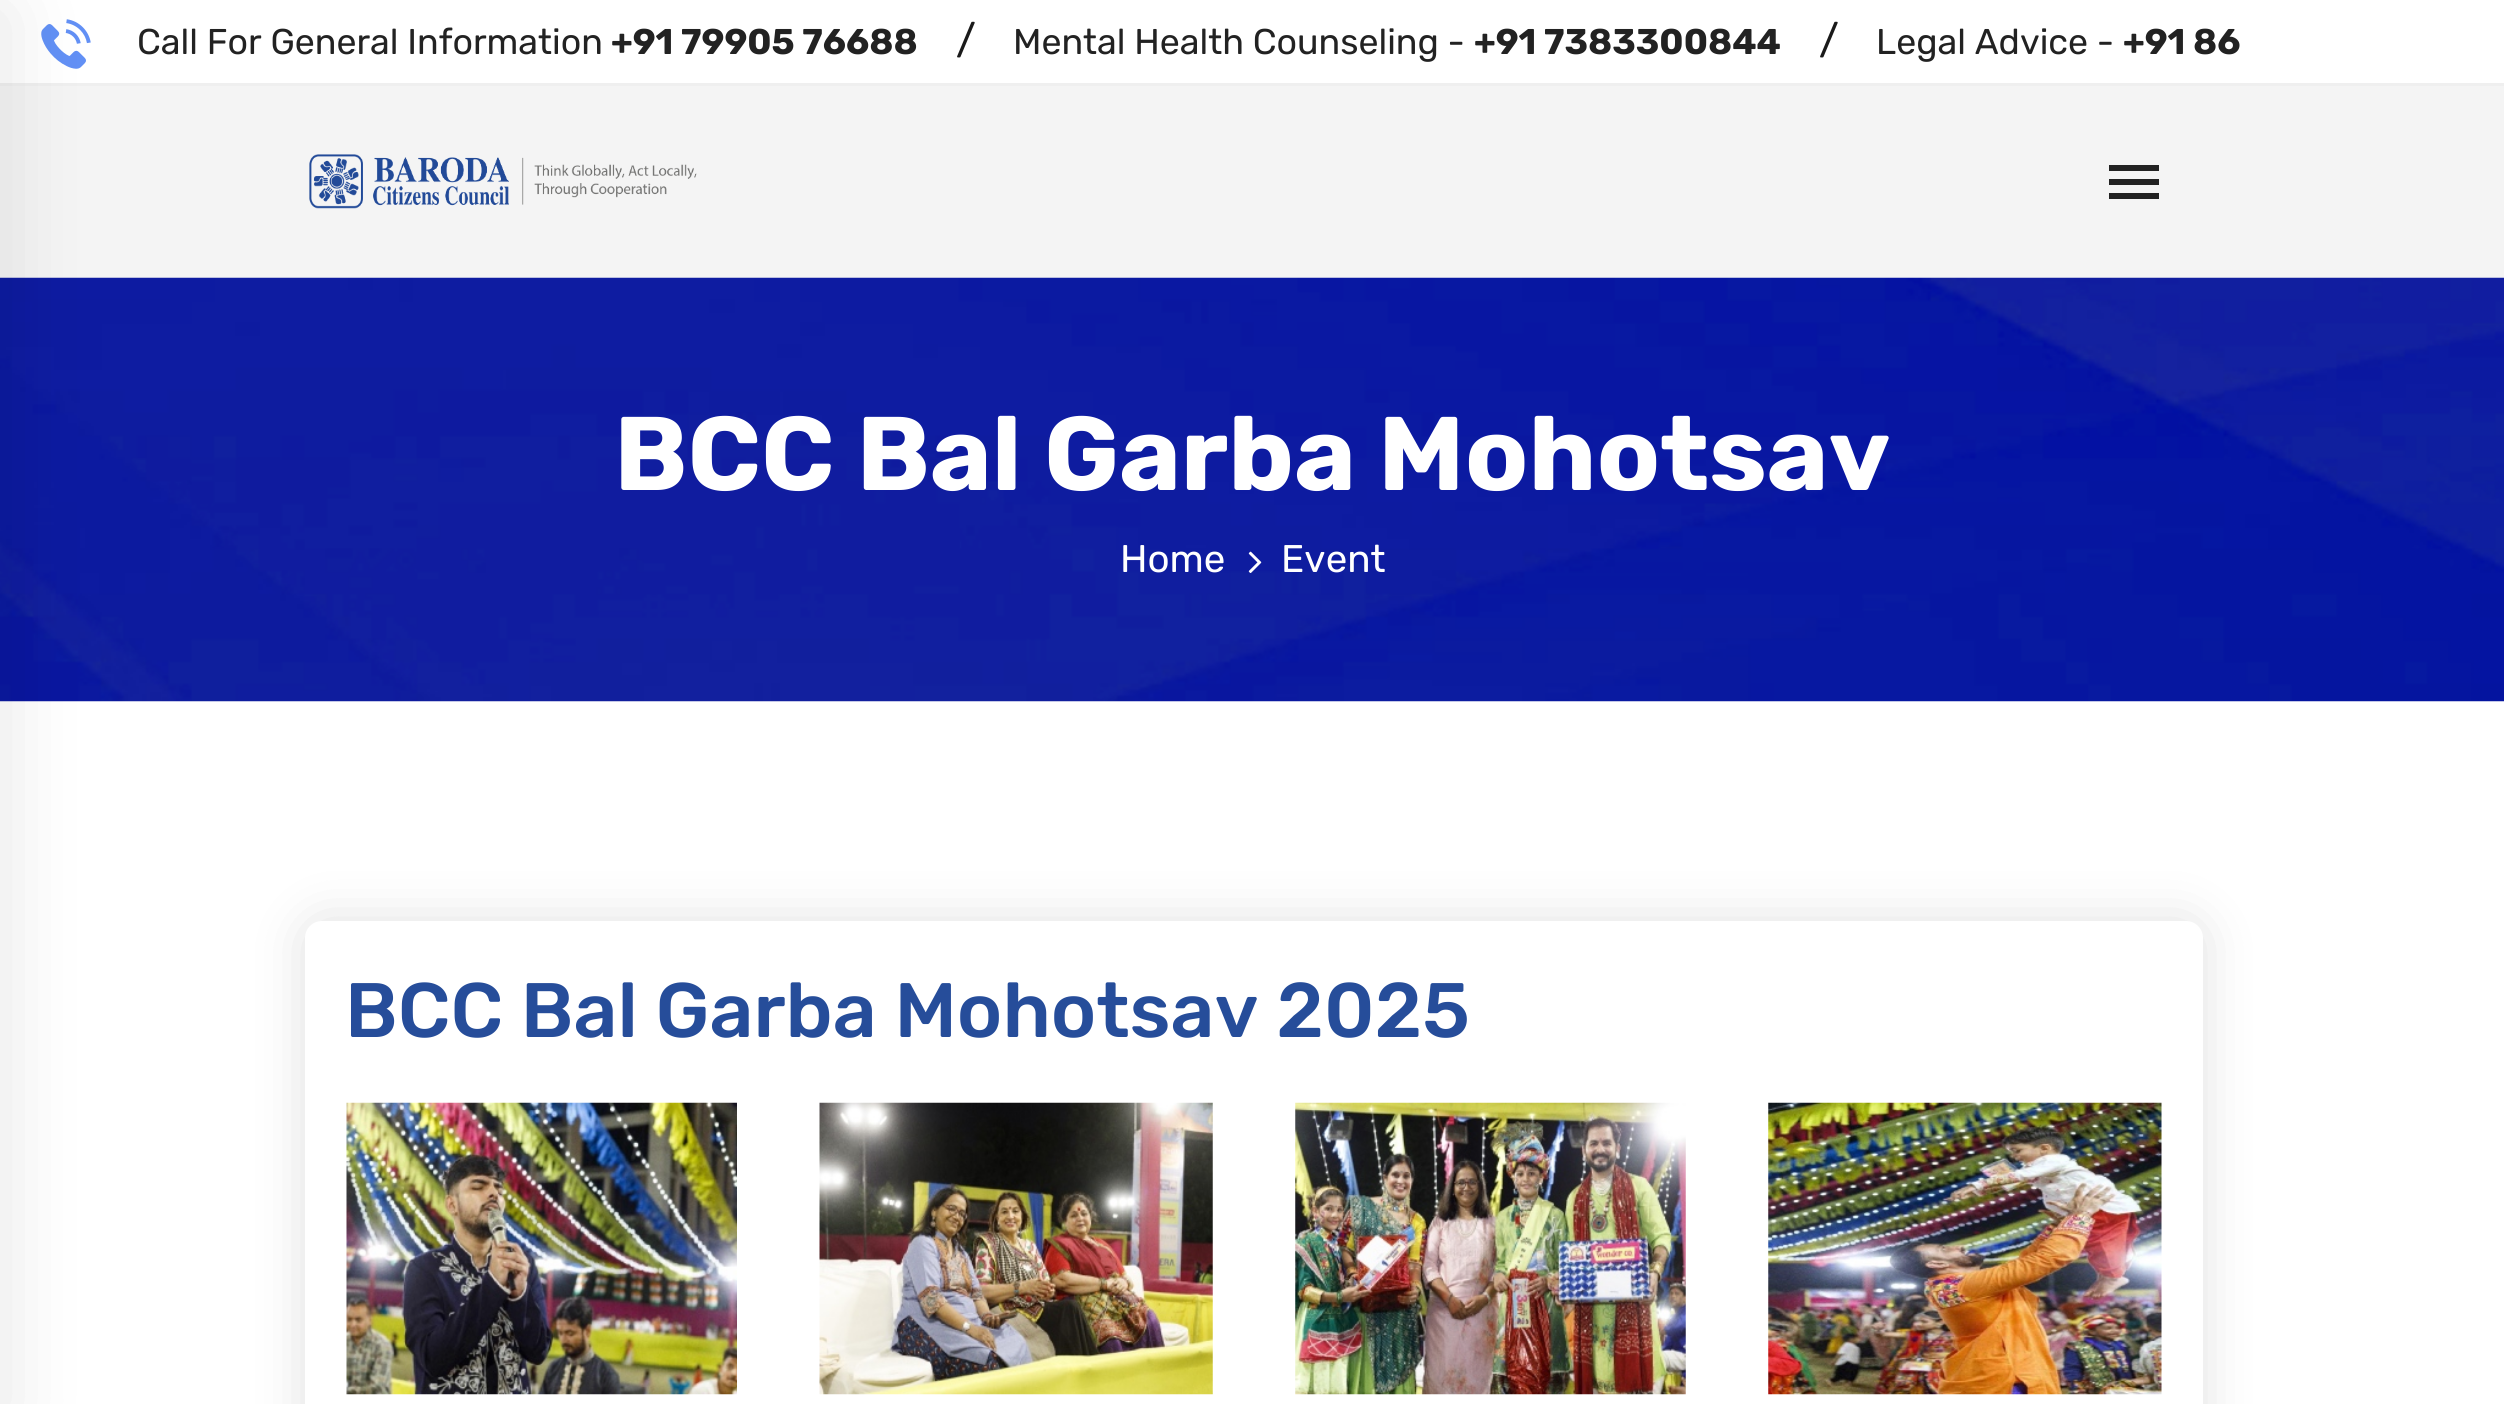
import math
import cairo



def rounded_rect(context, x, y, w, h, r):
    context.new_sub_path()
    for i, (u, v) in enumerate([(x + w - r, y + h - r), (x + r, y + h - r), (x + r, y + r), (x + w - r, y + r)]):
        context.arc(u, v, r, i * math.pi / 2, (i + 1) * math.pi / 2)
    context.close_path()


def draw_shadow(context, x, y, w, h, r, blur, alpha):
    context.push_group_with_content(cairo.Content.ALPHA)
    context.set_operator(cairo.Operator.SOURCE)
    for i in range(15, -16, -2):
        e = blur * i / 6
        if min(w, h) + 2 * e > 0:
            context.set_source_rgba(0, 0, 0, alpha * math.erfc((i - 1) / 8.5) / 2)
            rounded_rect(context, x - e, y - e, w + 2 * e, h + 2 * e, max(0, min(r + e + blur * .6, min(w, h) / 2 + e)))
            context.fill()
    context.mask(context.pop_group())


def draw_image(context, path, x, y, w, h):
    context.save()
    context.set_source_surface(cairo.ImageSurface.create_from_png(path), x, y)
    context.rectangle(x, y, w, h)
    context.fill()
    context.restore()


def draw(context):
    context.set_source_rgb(1, 1, 1)
    context.paint()
    context.set_source_rgb(244 / 255, 244 / 255, 244 / 255)
    context.rectangle(0, 86, 2504, 192)
    context.fill()
    context.set_source_rgb(239 / 255, 239 / 255, 239 / 255)
    context.rectangle(0, 83, 2504, 3)
    context.fill()
    draw_image(context, "images/2.png", 41, 19, 50, 50)
    draw_image(context, "images/3.png", 0, 277, 2504, 425)
    context.set_source_rgb(0, 0, 0)
    draw_shadow(context, -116, 11, 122, 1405, 0, 38.5, 0.1)
    context.set_source_rgb(34 / 255, 34 / 255, 34 / 255)
    context.rectangle(2109, 165, 50, 6)
    context.fill()
    context.rectangle(2109, 179, 50, 6)
    context.fill()
    context.rectangle(2109, 193, 50, 6)
    context.fill()
    draw_image(context, "images/1.png", 309, 154, 388, 55)
    draw_image(context, "images/4.png", 1248, 551, 14, 22)
    context.set_source_rgb(0, 0, 0)
    draw_shadow(context, 305, 921, 1898, 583, 17, 27.5, 0.12)
    context.set_source_rgb(1, 1, 1)
    rounded_rect(context, 305, 921, 1898, 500, 17)
    context.fill()
    draw_image(context, "images/5.png", 346, 1102, 391, 293)
    draw_image(context, "images/6.png", 819, 1102, 394, 293)
    draw_image(context, "images/7.png", 1295, 1102, 391, 293)
    draw_image(context, "images/8.png", 1768, 1102, 394, 293)
    context.select_font_face("Rubik")
    context.set_font_size(35.75)
    context.set_source_rgb(34 / 255, 34 / 255, 34 / 255)
    context.move_to(137, 54)
    context.show_text("Call For General Information")
    context.select_font_face("Rubik", cairo.FontSlant.NORMAL, cairo.FontWeight.BOLD)
    context.move_to(611, 54)
    context.show_text("+91 79905 76688")
    context.select_font_face("Rubik")
    context.set_font_size(41)
    context.set_source_rgb(26 / 255, 26 / 255, 26 / 255)
    context.move_to(956, 54)
    context.show_text("/")
    context.set_font_size(35.75)
    context.set_source_rgb(34 / 255, 34 / 255, 34 / 255)
    context.move_to(1013, 54)
    context.show_text("Mental Health Counseling -")
    context.select_font_face("Rubik", cairo.FontSlant.NORMAL, cairo.FontWeight.BOLD)
    context.move_to(1474, 54)
    context.show_text("+91 7383300844")
    context.select_font_face("Rubik")
    context.set_font_size(41)
    context.set_source_rgb(26 / 255, 26 / 255, 26 / 255)
    context.move_to(1819, 54)
    context.show_text("/")
    context.set_font_size(35.75)
    context.set_source_rgb(34 / 255, 34 / 255, 34 / 255)
    context.move_to(1876, 54)
    context.show_text("Legal Advice -")
    context.select_font_face("Rubik", cairo.FontSlant.NORMAL, cairo.FontWeight.BOLD)
    context.move_to(2123, 54)
    context.show_text("+91 86")
    context.set_font_size(104.5)
    context.set_source_rgb(1, 1, 1)
    context.move_to(614, 490)
    context.show_text("BCC Bal Garba Mohotsav")
    context.select_font_face("Rubik")
    context.set_font_size(38.5)
    context.move_to(1120, 572)
    context.show_text("Home")
    context.move_to(1281, 572)
    context.show_text("Event")
    context.select_font_face("Rubik Medium")
    context.set_font_size(77)
    context.set_source_rgb(38 / 255, 77 / 255, 154 / 255)
    context.move_to(345, 1037)
    context.show_text("BCC Bal Garba Mohotsav 2025")


surface = cairo.ImageSurface(cairo.Format.RGB24, 2504, 1404)
context = cairo.Context(surface)
options = cairo.FontOptions()
options.set_hint_metrics(cairo.HintMetrics.OFF)
options.set_hint_style(cairo.HintStyle.NONE)
context.set_font_options(options)
context.set_miter_limit(4)
draw(context)
surface.write_to_png("out.png")
